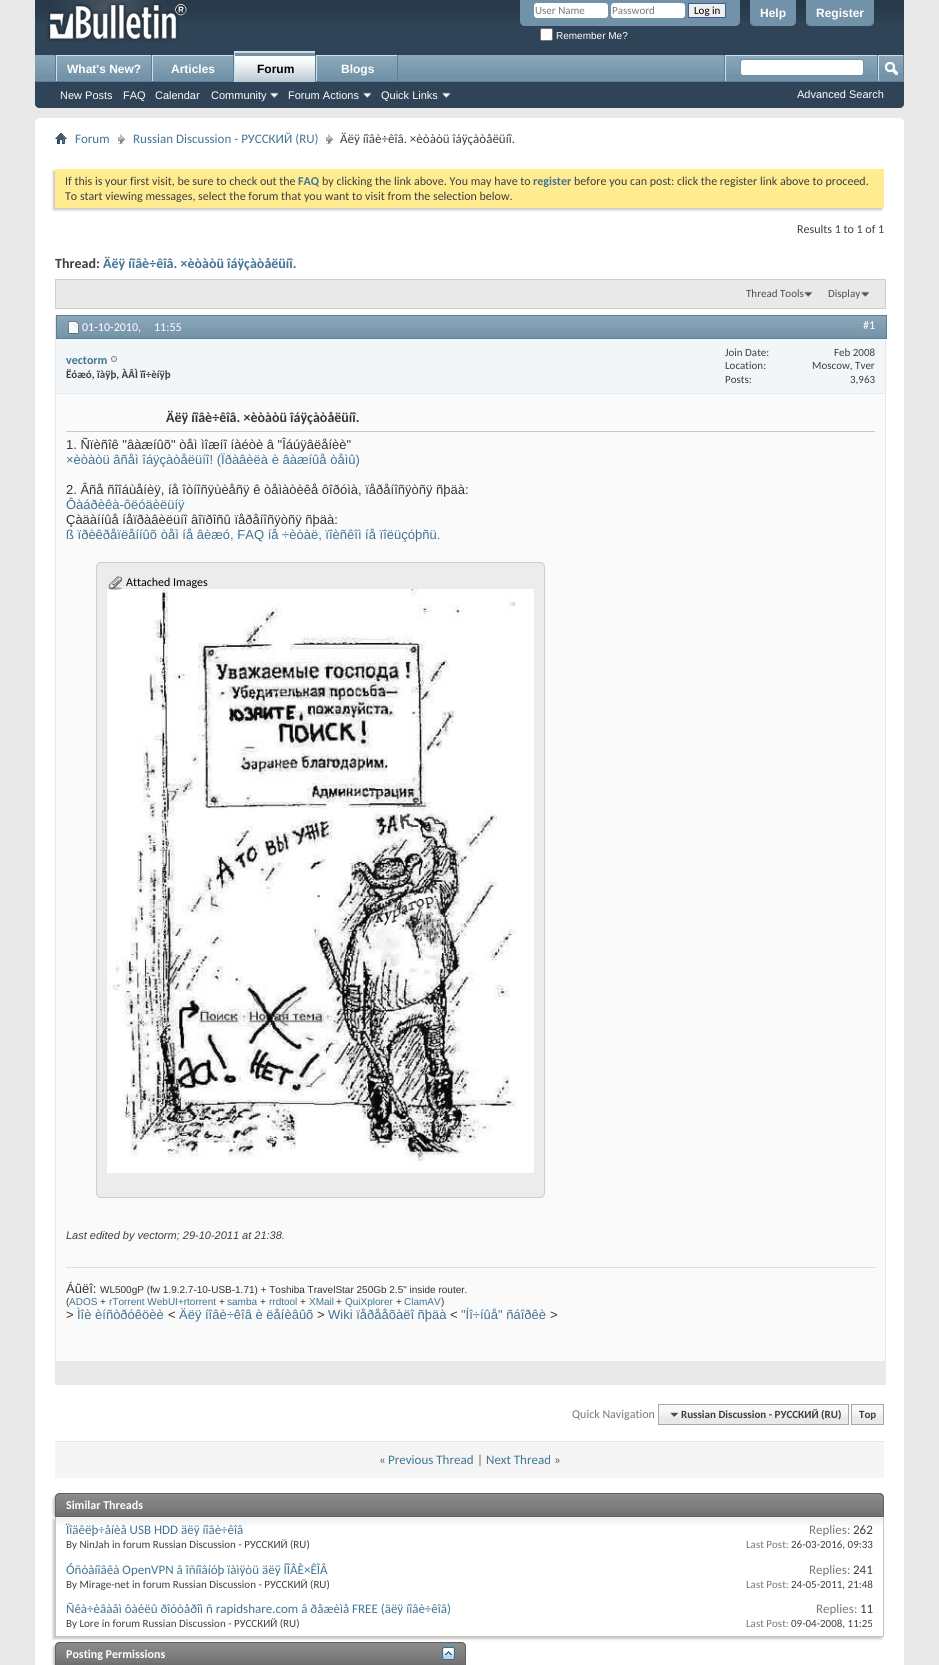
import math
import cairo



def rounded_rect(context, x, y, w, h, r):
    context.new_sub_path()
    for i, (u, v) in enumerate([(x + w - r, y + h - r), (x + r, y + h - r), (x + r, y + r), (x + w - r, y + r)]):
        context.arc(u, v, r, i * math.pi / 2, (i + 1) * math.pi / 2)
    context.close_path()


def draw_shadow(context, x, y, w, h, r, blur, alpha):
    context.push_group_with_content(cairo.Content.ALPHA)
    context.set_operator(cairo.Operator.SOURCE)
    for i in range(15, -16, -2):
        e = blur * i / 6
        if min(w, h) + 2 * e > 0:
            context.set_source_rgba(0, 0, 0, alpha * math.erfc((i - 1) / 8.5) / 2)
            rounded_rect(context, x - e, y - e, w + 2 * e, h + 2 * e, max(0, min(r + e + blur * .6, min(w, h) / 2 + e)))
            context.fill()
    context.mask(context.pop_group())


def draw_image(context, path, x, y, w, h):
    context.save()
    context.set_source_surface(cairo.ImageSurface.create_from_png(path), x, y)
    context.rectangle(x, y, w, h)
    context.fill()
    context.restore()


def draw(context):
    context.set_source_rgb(233 / 255, 233 / 255, 233 / 255)
    context.paint()
    context.set_source_rgb(47 / 255, 68 / 255, 86 / 255)
    context.new_path()
    context.move_to(35, 0)
    context.line_to(904, 0)
    context.line_to(904, 103)
    context.curve_to(904, 106, 902, 108, 899, 108)
    context.line_to(40, 108)
    context.curve_to(37, 108, 35, 106, 35, 103)
    context.close_path()
    context.fill()
    draw_image(context, "images/1.png", 35, 0, 869, 22)
    draw_image(context, "images/2.png", 47, 0, 140, 42)
    context.set_source_rgb(113 / 255, 146 / 255, 168 / 255)
    context.new_path()
    context.move_to(520, 0)
    context.line_to(740, 0)
    context.line_to(740, 21)
    context.curve_to(740, 24, 738, 26, 735, 26)
    context.line_to(525, 26)
    context.curve_to(522, 26, 520, 24, 520, 21)
    context.close_path()
    context.fill()
    context.set_source_rgb(1, 1, 1)
    rounded_rect(context, 534, 3, 74, 15, 3)
    context.fill()
    rounded_rect(context, 611, 3, 74, 15, 3)
    context.fill()
    context.set_source_rgb(239 / 255, 239 / 255, 239 / 255)
    context.rectangle(688.5, 3.5, 37, 14)
    context.fill_preserve()
    context.set_source_rgb(65 / 255, 93 / 255, 141 / 255)
    context.set_line_width(1)
    context.stroke()
    context.set_source_rgb(1, 1, 1)
    rounded_rect(context, 540.5, 28.5, 12, 12, 1.5)
    context.fill_preserve()
    context.set_source_rgb(118 / 255, 118 / 255, 118 / 255)
    context.stroke()
    context.set_source_rgb(113 / 255, 146 / 255, 168 / 255)
    context.new_path()
    context.move_to(750, 0)
    context.line_to(796, 0)
    context.line_to(796, 21)
    context.curve_to(796, 24, 794, 26, 791, 26)
    context.line_to(755, 26)
    context.curve_to(752, 26, 750, 24, 750, 21)
    context.close_path()
    context.fill()
    context.new_path()
    context.move_to(806, 0)
    context.line_to(874, 0)
    context.line_to(874, 21)
    context.curve_to(874, 24, 872, 26, 869, 26)
    context.line_to(811, 26)
    context.curve_to(808, 26, 806, 24, 806, 21)
    context.close_path()
    context.fill()
    context.set_source_rgb(47 / 255, 68 / 255, 86 / 255)
    context.new_path()
    context.move_to(35, 55)
    context.line_to(904, 55)
    context.line_to(904, 103)
    context.curve_to(904, 106, 902, 108, 899, 108)
    context.line_to(40, 108)
    context.curve_to(37, 108, 35, 106, 35, 103)
    context.close_path()
    context.fill()
    context.set_source_rgb(113 / 255, 146 / 255, 168 / 255)
    context.rectangle(35, 55, 868, 26)
    context.fill()
    draw_image(context, "images/3.png", 35, 55, 868, 20)
    context.set_source_rgb(90 / 255, 127 / 255, 151 / 255)
    context.rectangle(151, 55, 1, 27)
    context.fill()
    context.rectangle(55, 55, 1, 27)
    context.fill()
    context.set_source_rgb(113 / 255, 146 / 255, 168 / 255)
    context.rectangle(57, 56, 94, 19)
    context.fill()
    draw_image(context, "images/4.png", 57, 56, 94, 20)
    context.set_source_rgb(206 / 255, 223 / 255, 235 / 255)
    context.rectangle(56, 55, 95, 1)
    context.fill()
    context.rectangle(56, 55, 1, 27)
    context.fill()
    context.set_source_rgb(90 / 255, 127 / 255, 151 / 255)
    context.rectangle(233, 55, 1, 27)
    context.fill()
    context.set_source_rgb(113 / 255, 146 / 255, 168 / 255)
    context.rectangle(153, 56, 80, 19)
    context.fill()
    draw_image(context, "images/5.png", 153, 56, 80, 20)
    context.set_source_rgb(206 / 255, 223 / 255, 235 / 255)
    context.rectangle(152, 55, 81, 1)
    context.fill()
    context.rectangle(152, 55, 1, 27)
    context.fill()
    context.set_source_rgb(90 / 255, 127 / 255, 151 / 255)
    context.rectangle(315, 55, 1, 26)
    context.fill()
    context.rectangle(397, 55, 1, 27)
    context.fill()
    context.set_source_rgb(206 / 255, 223 / 255, 235 / 255)
    context.rectangle(316, 55, 81, 1)
    context.fill()
    context.rectangle(316, 55, 1, 27)
    context.fill()
    context.set_source_rgb(90 / 255, 127 / 255, 151 / 255)
    context.rectangle(35, 81, 869, 1)
    context.fill()
    context.set_source_rgb(113 / 255, 146 / 255, 168 / 255)
    context.rectangle(235, 52, 80, 30)
    context.fill()
    draw_image(context, "images/6.png", 235, 52, 80, 30)
    context.set_source_rgb(206 / 255, 223 / 255, 235 / 255)
    context.rectangle(234, 51, 81, 1)
    context.fill()
    context.rectangle(234, 51, 1, 31)
    context.fill()
    context.set_source_rgb(113 / 255, 146 / 255, 168 / 255)
    context.rectangle(317, 56, 80, 19)
    context.fill()
    draw_image(context, "images/5.png", 317, 56, 80, 20)
    draw_image(context, "images/7.png", 270, 92, 9, 6)
    draw_image(context, "images/7.png", 363, 92, 9, 6)
    draw_image(context, "images/7.png", 442, 92, 9, 6)
    context.set_source_rgb(90 / 255, 127 / 255, 151 / 255)
    context.rectangle(724, 55, 1, 26)
    context.fill()
    context.set_source_rgb(206 / 255, 223 / 255, 235 / 255)
    context.rectangle(725, 55, 152, 1)
    context.fill()
    context.rectangle(725, 55, 1, 26)
    context.fill()
    context.set_source_rgb(1, 1, 1)
    rounded_rect(context, 740.5, 59.5, 123, 16, 2.5)
    context.fill_preserve()
    context.set_source_rgb(107 / 255, 145 / 255, 171 / 255)
    context.stroke()
    context.set_source_rgb(90 / 255, 127 / 255, 151 / 255)
    context.rectangle(903, 55, 1, 26)
    context.fill()
    context.rectangle(877, 55, 1, 26)
    context.fill()
    context.set_source_rgb(206 / 255, 223 / 255, 235 / 255)
    context.rectangle(878, 55, 25, 1)
    context.fill()
    context.rectangle(878, 55, 1, 26)
    context.fill()
    draw_image(context, "images/8.png", 885, 62, 13, 14)
    context.set_source_rgb(1, 1, 1)
    rounded_rect(context, 35, 118, 869, 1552, 5)
    context.fill()
    draw_image(context, "images/9.png", 55, 133, 12, 11)
    draw_image(context, "images/10.png", 118, 134, 7, 10)
    draw_image(context, "images/10.png", 326, 134, 7, 10)
    context.set_source_rgb(200 / 255, 200 / 255, 200 / 255)
    draw_shadow(context, 53, 171, 829, 39, 0, 1, 1)
    context.set_source_rgb(1, 235 / 255, 144 / 255)
    context.rectangle(55, 169, 829, 39)
    context.fill()
    context.set_source_rgb(233 / 255, 233 / 255, 233 / 255)
    context.rectangle(56, 281, 829, 27)
    context.fill()
    context.set_source_rgb(237 / 255, 237 / 255, 237 / 255)
    context.rectangle(55, 280, 831, 1)
    context.fill()
    context.rectangle(55.5, 279.5, 830, 29)
    context.set_source_rgb(206 / 255, 206 / 255, 206 / 255)
    context.stroke()
    draw_image(context, "images/11.png", 804, 291, 9, 7)
    draw_image(context, "images/11.png", 861, 291, 9, 7)
    context.rectangle(55.5, 315.5, 830, 1069)
    context.set_source_rgb(233 / 255, 233 / 255, 233 / 255)
    context.stroke()
    context.set_source_rgb(113 / 255, 146 / 255, 168 / 255)
    context.rectangle(57, 316, 829, 22)
    context.fill()
    draw_image(context, "images/12.png", 57, 316, 829, 20)
    context.rectangle(56.5, 315.5, 830, 23)
    context.set_source_rgb(90 / 255, 127 / 255, 151 / 255)
    context.stroke()
    draw_image(context, "images/13.png", 68, 321, 11, 13)
    context.set_source_rgb(242 / 255, 246 / 255, 248 / 255)
    context.rectangle(56, 339, 829, 54)
    context.fill()
    context.set_source_rgb(233 / 255, 233 / 255, 233 / 255)
    context.rectangle(56, 393, 829, 1)
    context.fill()
    draw_image(context, "images/14.png", 111, 356, 6, 6)
    context.set_source_rgb(250 / 255, 250 / 255, 250 / 255)
    context.rectangle(56, 394, 829, 967)
    context.fill()
    context.set_source_rgb(200 / 255, 200 / 255, 200 / 255)
    context.rectangle(66, 431, 809, 1)
    context.fill()
    context.set_source_rgb(236 / 255, 236 / 255, 236 / 255)
    rounded_rect(context, 96.5, 562.5, 448, 635, 4.5)
    context.fill_preserve()
    context.set_source_rgb(206 / 255, 206 / 255, 206 / 255)
    context.stroke()
    draw_image(context, "images/16.png", 107, 589, 427, 584)
    draw_image(context, "images/15.png", 108, 576, 14, 14)
    context.set_source_rgb(221 / 255, 221 / 255, 221 / 255)
    context.rectangle(66, 1267, 809, 1)
    context.fill()
    context.set_source_rgb(233 / 255, 233 / 255, 233 / 255)
    context.rectangle(56, 1361, 829, 23)
    context.fill()
    context.rectangle(659, 1405, 189, 19)
    context.fill()
    draw_image(context, "images/17.png", 659, 1405, 189, 12)
    context.rectangle(852, 1405, 31, 19)
    context.fill()
    draw_image(context, "images/18.png", 852, 1405, 31, 12)
    context.rectangle(658.5, 1404.5, 190, 20)
    context.set_source_rgb(168 / 255, 168 / 255, 168 / 255)
    context.stroke()
    draw_image(context, "images/19.png", 670, 1412, 9, 6)
    context.rectangle(851.5, 1404.5, 32, 20)
    context.stroke()
    context.set_source_rgb(245 / 255, 245 / 255, 245 / 255)
    context.rectangle(55, 1442, 829, 36)
    context.fill()
    context.set_source_rgb(231 / 255, 231 / 255, 231 / 255)
    context.rectangle(55, 1441, 829, 1)
    context.fill()
    context.set_source_rgb(200 / 255, 200 / 255, 200 / 255)
    draw_shadow(context, 53, 1495, 829, 24, 5, 1, 1)
    context.set_source_rgb(112 / 255, 112 / 255, 112 / 255)
    context.new_path()
    context.move_to(60, 1493)
    context.line_to(879, 1493)
    context.curve_to(882, 1493, 884, 1495, 884, 1498)
    context.line_to(884, 1517)
    context.line_to(55, 1517)
    context.line_to(55, 1498)
    context.curve_to(55, 1495, 57, 1493, 60, 1493)
    context.close_path()
    context.fill()
    draw_image(context, "images/20.png", 55, 1494, 829, 20)
    context.new_path()
    context.move_to(60, 1493.5)
    context.line_to(879, 1493.5)
    context.curve_to(881.5, 1493.5, 883.5, 1495.5, 883.5, 1498)
    context.line_to(883.5, 1516.5)
    context.line_to(55.5, 1516.5)
    context.line_to(55.5, 1498)
    context.curve_to(55.5, 1495.5, 57.5, 1493.5, 60, 1493.5)
    context.close_path()
    context.set_source_rgb(96 / 255, 96 / 255, 96 / 255)
    context.stroke()
    context.set_source_rgb(200 / 255, 200 / 255, 200 / 255)
    draw_shadow(context, 53, 1519, 829, 120, 0, 1, 1)
    context.set_source_rgb(1, 1, 1)
    context.rectangle(56, 1517, 827, 119)
    context.fill()
    draw_image(context, "images/21.png", 56, 1517, 827, 9)
    context.set_source_rgb(196 / 255, 196 / 255, 196 / 255)
    context.rectangle(883, 1517, 1, 120)
    context.fill()
    context.rectangle(55, 1636, 829, 1)
    context.fill()
    context.rectangle(55, 1517, 1, 120)
    context.fill()
    context.set_source_rgb(200 / 255, 200 / 255, 200 / 255)
    draw_shadow(context, 53, 1644, 411, 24, 5, 1, 1)
    context.set_source_rgb(112 / 255, 112 / 255, 112 / 255)
    context.new_path()
    context.move_to(60, 1642)
    context.line_to(461, 1642)
    context.curve_to(464, 1642, 466, 1644, 466, 1647)
    context.line_to(466, 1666)
    context.line_to(55, 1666)
    context.line_to(55, 1647)
    context.curve_to(55, 1644, 57, 1642, 60, 1642)
    context.close_path()
    context.fill()
    draw_image(context, "images/22.png", 55, 1643, 411, 20)
    context.new_path()
    context.move_to(60, 1642.5)
    context.line_to(461, 1642.5)
    context.curve_to(463.5, 1642.5, 465.5, 1644.5, 465.5, 1647)
    context.line_to(465.5, 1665.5)
    context.line_to(55.5, 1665.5)
    context.line_to(55.5, 1647)
    context.curve_to(55.5, 1644.5, 57.5, 1642.5, 60, 1642.5)
    context.close_path()
    context.set_source_rgb(96 / 255, 96 / 255, 96 / 255)
    context.stroke()
    draw_image(context, "images/23.png", 442, 1647, 13, 13)
    context.select_font_face("Carlito")
    context.set_font_size(11)
    context.set_source_rgb(119 / 255, 119 / 255, 119 / 255)
    context.move_to(535, 14)
    context.show_text("User Name")
    context.move_to(612, 14)
    context.show_text("Password")
    context.set_source_rgb(0, 0, 0)
    context.move_to(694, 14)
    context.show_text("Log in")
    context.select_font_face("Liberation Sans")
    context.set_font_size(10)
    context.set_source_rgb(1, 1, 1)
    context.move_to(556, 39)
    context.show_text("Remember Me?")
    context.select_font_face("Liberation Sans", cairo.FontSlant.NORMAL, cairo.FontWeight.BOLD)
    context.set_font_size(12)
    context.move_to(760, 17)
    context.show_text("Help")
    context.move_to(816, 17)
    context.show_text("Register")
    context.move_to(67, 73)
    context.show_text("What's New?")
    context.move_to(171, 73)
    context.show_text("Articles")
    context.set_source_rgb(0, 0, 0)
    context.move_to(257, 73)
    context.show_text("Forum")
    context.set_source_rgb(1, 1, 1)
    context.move_to(341, 73)
    context.show_text("Blogs")
    context.select_font_face("Liberation Sans")
    context.set_font_size(11)
    context.move_to(60, 99)
    context.show_text("New Posts")
    context.move_to(123, 99)
    context.show_text("FAQ")
    context.move_to(155, 99)
    context.show_text("Calendar")
    context.move_to(211, 99)
    context.show_text("Community")
    context.move_to(288, 99)
    context.show_text("Forum Actions")
    context.move_to(381, 99)
    context.show_text("Quick Links")
    context.move_to(797, 98)
    context.show_text("Advanced Search")
    context.select_font_face("Carlito")
    context.set_font_size(13)
    context.set_source_rgb(65 / 255, 115 / 255, 148 / 255)
    context.move_to(75, 143)
    context.show_text("Forum")
    context.move_to(133, 143)
    context.show_text("Russian Discussion - РУССКИЙ (RU)")
    context.set_source_rgb(62 / 255, 62 / 255, 62 / 255)
    context.move_to(340, 143)
    context.show_text("Äëÿ íîâè÷êîâ. ×èòàòü îáÿçàòåëüíî.")
    context.set_font_size(12)
    context.move_to(65, 185)
    context.show_text("If this is your first visit, be sure to check out the")
    context.select_font_face("Carlito", cairo.FontSlant.NORMAL, cairo.FontWeight.BOLD)
    context.set_source_rgb(65 / 255, 115 / 255, 148 / 255)
    context.move_to(298, 185)
    context.show_text("FAQ")
    context.select_font_face("Carlito")
    context.set_source_rgb(62 / 255, 62 / 255, 62 / 255)
    context.move_to(322, 185)
    context.show_text("by clicking the link above. You may have to")
    context.select_font_face("Carlito", cairo.FontSlant.NORMAL, cairo.FontWeight.BOLD)
    context.set_source_rgb(65 / 255, 115 / 255, 148 / 255)
    context.move_to(533, 185)
    context.show_text("register")
    context.select_font_face("Carlito")
    context.set_source_rgb(62 / 255, 62 / 255, 62 / 255)
    context.move_to(574, 185)
    context.show_text("before you can post: click the register link above to proceed.")
    context.move_to(65, 200)
    context.show_text("To start viewing messages, select the forum that you want to visit from the selection below.")
    context.move_to(797, 233)
    context.show_text("Results 1 to 1 of 1")
    context.select_font_face("Carlito", cairo.FontSlant.NORMAL, cairo.FontWeight.BOLD)
    context.set_font_size(14)
    context.move_to(55, 268)
    context.show_text("Thread:")
    context.set_source_rgb(65 / 255, 115 / 255, 148 / 255)
    context.move_to(103, 268)
    context.show_text("Äëÿ íîâè÷êîâ. ×èòàòü îáÿçàòåëüíî.")
    context.select_font_face("Carlito")
    context.set_font_size(11)
    context.set_source_rgb(78 / 255, 78 / 255, 78 / 255)
    context.move_to(746, 297)
    context.show_text("Thread Tools")
    context.move_to(828, 297)
    context.show_text("Display")
    context.set_font_size(12)
    context.set_source_rgb(1, 1, 1)
    context.move_to(82, 331)
    context.show_text("01-10-2010,")
    context.move_to(154, 331)
    context.show_text("11:55")
    context.move_to(863, 329)
    context.show_text("#1")
    context.select_font_face("Carlito", cairo.FontSlant.NORMAL, cairo.FontWeight.BOLD)
    context.set_source_rgb(65 / 255, 115 / 255, 148 / 255)
    context.move_to(66, 364)
    context.show_text("vectorm")
    context.set_font_size(11)
    context.set_source_rgb(62 / 255, 62 / 255, 62 / 255)
    context.move_to(66, 378)
    context.show_text("Ëóæó, ïàÿþ, ÀÂÌ ïî÷èíÿþ")
    context.select_font_face("Carlito")
    context.move_to(725, 356)
    context.show_text("Join Date:")
    context.move_to(834, 356)
    context.show_text("Feb 2008")
    context.move_to(725, 369)
    context.show_text("Location:")
    context.move_to(812, 369)
    context.show_text("Moscow, Tver")
    context.move_to(725, 383)
    context.show_text("Posts:")
    context.move_to(850, 383)
    context.show_text("3,963")
    context.select_font_face("Carlito", cairo.FontSlant.NORMAL, cairo.FontWeight.BOLD)
    context.set_font_size(14)
    context.set_source_rgb(51 / 255, 51 / 255, 51 / 255)
    context.move_to(166, 422)
    context.show_text("Äëÿ íîâè÷êîâ. ×èòàòü îáÿçàòåëüíî.")
    context.select_font_face("Liberation Sans")
    context.set_font_size(13)
    context.move_to(66, 449)
    context.show_text("1. Ñïèñîê \"âàæíûõ\" òåì ìîæíî íàéòè â \"Îáúÿâëåíèè\"")
    context.set_source_rgb(65 / 255, 115 / 255, 148 / 255)
    context.move_to(66, 464)
    context.show_text("×èòàòü âñåì îáÿçàòåëüíî! (Ïðàâèëà è âàæíûå òåìû)")
    context.set_source_rgb(51 / 255, 51 / 255, 51 / 255)
    context.move_to(66, 494)
    context.show_text("2. Âñå ñîîáùåíèÿ, íå îòíîñÿùèåñÿ ê òåìàòèêå ôîðóìà, ïåðåíîñÿòñÿ ñþäà:")
    context.set_source_rgb(65 / 255, 115 / 255, 148 / 255)
    context.move_to(66, 509)
    context.show_text("Ôàáðèêà-ôëóäèëüíÿ")
    context.set_source_rgb(51 / 255, 51 / 255, 51 / 255)
    context.move_to(66, 524)
    context.show_text("Çàäàííûå íåïðàâèëüíî âîïðîñû ïåðåíîñÿòñÿ ñþäà:")
    context.set_source_rgb(65 / 255, 115 / 255, 148 / 255)
    context.move_to(66, 539)
    context.show_text("ß ïðèêðåïëåííûõ òåì íå âèæó, FAQ íå ÷èòàë, ïîèñêîì íå ïîëüçóþñü.")
    context.select_font_face("Carlito")
    context.set_font_size(12)
    context.set_source_rgb(0, 0, 0)
    context.move_to(126, 586)
    context.show_text("Attached Images")
    context.select_font_face("Liberation Sans", cairo.FontSlant.ITALIC)
    context.set_font_size(11)
    context.set_source_rgb(62 / 255, 62 / 255, 62 / 255)
    context.move_to(66, 1239)
    context.show_text("Last edited by vectorm; 29-10-2011 at 21:38.")
    context.select_font_face("Liberation Sans")
    context.set_font_size(13)
    context.set_source_rgb(51 / 255, 51 / 255, 51 / 255)
    context.move_to(66, 1293)
    context.show_text("Áûëî:")
    context.set_font_size(10)
    context.move_to(100, 1293)
    context.show_text("WL500gP (fw 1.9.2.7-10-USB-1.71) + Toshiba TravelStar 250Gb 2.5\" inside router.")
    context.move_to(66, 1305)
    context.show_text("(")
    context.set_source_rgb(65 / 255, 115 / 255, 148 / 255)
    context.move_to(69, 1305)
    context.show_text("ADOS")
    context.set_source_rgb(51 / 255, 51 / 255, 51 / 255)
    context.move_to(100, 1305)
    context.show_text("+")
    context.set_source_rgb(65 / 255, 115 / 255, 148 / 255)
    context.move_to(109, 1305)
    context.show_text("rTorrent WebUI+rtorrent")
    context.set_source_rgb(51 / 255, 51 / 255, 51 / 255)
    context.move_to(219, 1305)
    context.show_text("+")
    context.set_source_rgb(65 / 255, 115 / 255, 148 / 255)
    context.move_to(227, 1305)
    context.show_text("samba")
    context.set_source_rgb(51 / 255, 51 / 255, 51 / 255)
    context.move_to(260, 1305)
    context.show_text("+")
    context.set_source_rgb(65 / 255, 115 / 255, 148 / 255)
    context.move_to(269, 1305)
    context.show_text("rrdtool")
    context.set_source_rgb(51 / 255, 51 / 255, 51 / 255)
    context.move_to(300, 1305)
    context.show_text("+")
    context.set_source_rgb(65 / 255, 115 / 255, 148 / 255)
    context.move_to(309, 1305)
    context.show_text("XMail")
    context.set_source_rgb(51 / 255, 51 / 255, 51 / 255)
    context.move_to(336, 1305)
    context.show_text("+")
    context.set_source_rgb(65 / 255, 115 / 255, 148 / 255)
    context.move_to(345, 1305)
    context.show_text("QuiXplorer")
    context.set_source_rgb(51 / 255, 51 / 255, 51 / 255)
    context.move_to(396, 1305)
    context.show_text("+")
    context.set_source_rgb(65 / 255, 115 / 255, 148 / 255)
    context.move_to(404, 1305)
    context.show_text("ClamAV")
    context.set_source_rgb(51 / 255, 51 / 255, 51 / 255)
    context.move_to(441, 1305)
    context.show_text(")")
    context.set_font_size(13)
    context.move_to(66, 1319)
    context.show_text(">")
    context.set_source_rgb(65 / 255, 115 / 255, 148 / 255)
    context.move_to(77, 1319)
    context.show_text("Ìîè èíñòðóêöèè")
    context.set_source_rgb(51 / 255, 51 / 255, 51 / 255)
    context.move_to(168, 1319)
    context.show_text("<")
    context.set_source_rgb(65 / 255, 115 / 255, 148 / 255)
    context.move_to(179, 1319)
    context.show_text("Äëÿ íîâè÷êîâ è ëåíèâûõ")
    context.set_source_rgb(51 / 255, 51 / 255, 51 / 255)
    context.move_to(317, 1319)
    context.show_text(">")
    context.set_source_rgb(65 / 255, 115 / 255, 148 / 255)
    context.move_to(328, 1319)
    context.show_text("Wiki ïåðååõàëî ñþäà")
    context.set_source_rgb(51 / 255, 51 / 255, 51 / 255)
    context.move_to(450, 1319)
    context.show_text("<")
    context.set_source_rgb(65 / 255, 115 / 255, 148 / 255)
    context.move_to(461, 1319)
    context.show_text("\"Íî÷íûå\" ñáîðêè")
    context.set_source_rgb(51 / 255, 51 / 255, 51 / 255)
    context.move_to(550, 1319)
    context.show_text(">")
    context.select_font_face("Carlito")
    context.set_font_size(12)
    context.set_source_rgb(119 / 255, 119 / 255, 119 / 255)
    context.move_to(572, 1418)
    context.show_text("Quick Navigation")
    context.select_font_face("Carlito", cairo.FontSlant.NORMAL, cairo.FontWeight.BOLD)
    context.set_font_size(11)
    context.set_source_rgb(62 / 255, 62 / 255, 62 / 255)
    context.move_to(681, 1418)
    context.show_text("Russian Discussion - РУССКИЙ (RU)")
    context.move_to(859, 1418)
    context.show_text("Top")
    context.select_font_face("Carlito")
    context.set_font_size(13)
    context.set_source_rgb(93 / 255, 93 / 255, 93 / 255)
    context.move_to(379, 1464)
    context.show_text("«")
    context.set_source_rgb(65 / 255, 115 / 255, 148 / 255)
    context.move_to(388, 1464)
    context.show_text("Previous Thread")
    context.set_source_rgb(93 / 255, 93 / 255, 93 / 255)
    context.move_to(477, 1464)
    context.show_text("|")
    context.set_source_rgb(65 / 255, 115 / 255, 148 / 255)
    context.move_to(486, 1464)
    context.show_text("Next Thread")
    context.set_source_rgb(93 / 255, 93 / 255, 93 / 255)
    context.move_to(554, 1464)
    context.show_text("»")
    context.select_font_face("Carlito", cairo.FontSlant.NORMAL, cairo.FontWeight.BOLD)
    context.set_font_size(12)
    context.set_source_rgb(1, 1, 1)
    context.move_to(66, 1509)
    context.show_text("Similar Threads")
    context.select_font_face("Carlito")
    context.set_font_size(13)
    context.set_source_rgb(65 / 255, 115 / 255, 148 / 255)
    context.move_to(66, 1534)
    context.show_text("Ïîäêëþ÷åíèå USB HDD äëÿ íîâè÷êîâ")
    context.set_font_size(11)
    context.set_source_rgb(62 / 255, 62 / 255, 62 / 255)
    context.move_to(66, 1548)
    context.show_text("By NinJah in forum Russian Discussion - РУССКИЙ (RU)")
    context.set_font_size(13)
    context.set_source_rgb(119 / 255, 119 / 255, 119 / 255)
    context.move_to(809, 1534)
    context.show_text("Replies:")
    context.set_source_rgb(62 / 255, 62 / 255, 62 / 255)
    context.move_to(853, 1534)
    context.show_text("262")
    context.set_font_size(11)
    context.set_source_rgb(119 / 255, 119 / 255, 119 / 255)
    context.move_to(746, 1548)
    context.show_text("Last Post:")
    context.set_source_rgb(62 / 255, 62 / 255, 62 / 255)
    context.move_to(791, 1548)
    context.show_text("26-03-2016, 09:33")
    context.set_font_size(13)
    context.set_source_rgb(65 / 255, 115 / 255, 148 / 255)
    context.move_to(66, 1574)
    context.show_text("Óñòàíîâêà OpenVPN â îñíîâíóþ ïàìÿòü äëÿ ÍÎÂÈ×ÊÎÂ")
    context.set_font_size(11)
    context.set_source_rgb(62 / 255, 62 / 255, 62 / 255)
    context.move_to(66, 1588)
    context.show_text("By Mirage-net in forum Russian Discussion - РУССКИЙ (RU)")
    context.set_font_size(13)
    context.set_source_rgb(119 / 255, 119 / 255, 119 / 255)
    context.move_to(809, 1574)
    context.show_text("Replies:")
    context.set_source_rgb(62 / 255, 62 / 255, 62 / 255)
    context.move_to(853, 1574)
    context.show_text("241")
    context.set_font_size(11)
    context.set_source_rgb(119 / 255, 119 / 255, 119 / 255)
    context.move_to(746, 1588)
    context.show_text("Last Post:")
    context.set_source_rgb(62 / 255, 62 / 255, 62 / 255)
    context.move_to(791, 1588)
    context.show_text("24-05-2011, 21:48")
    context.set_font_size(13)
    context.set_source_rgb(65 / 255, 115 / 255, 148 / 255)
    context.move_to(66, 1613)
    context.show_text("Ñêà÷èâàåì ôàéëû ðîóòåðîì ñ rapidshare.com â ðåæèìå FREE (äëÿ íîâè÷êîâ)")
    context.set_font_size(11)
    context.set_source_rgb(62 / 255, 62 / 255, 62 / 255)
    context.move_to(66, 1627)
    context.show_text("By Lore in forum Russian Discussion - РУССКИЙ (RU)")
    context.set_font_size(13)
    context.set_source_rgb(119 / 255, 119 / 255, 119 / 255)
    context.move_to(816, 1613)
    context.show_text("Replies:")
    context.set_source_rgb(62 / 255, 62 / 255, 62 / 255)
    context.move_to(860, 1613)
    context.show_text("11")
    context.set_font_size(11)
    context.set_source_rgb(119 / 255, 119 / 255, 119 / 255)
    context.move_to(746, 1627)
    context.show_text("Last Post:")
    context.set_source_rgb(62 / 255, 62 / 255, 62 / 255)
    context.move_to(791, 1627)
    context.show_text("09-04-2008, 11:25")
    context.select_font_face("Carlito", cairo.FontSlant.NORMAL, cairo.FontWeight.BOLD)
    context.set_font_size(12)
    context.set_source_rgb(1, 1, 1)
    context.move_to(66, 1658)
    context.show_text("Posting Permissions")


surface = cairo.ImageSurface(cairo.Format.RGB24, 939, 1665)
context = cairo.Context(surface)
options = cairo.FontOptions()
options.set_hint_metrics(cairo.HintMetrics.OFF)
options.set_hint_style(cairo.HintStyle.NONE)
context.set_font_options(options)
context.set_miter_limit(4)
draw(context)
surface.write_to_png("out.png")
